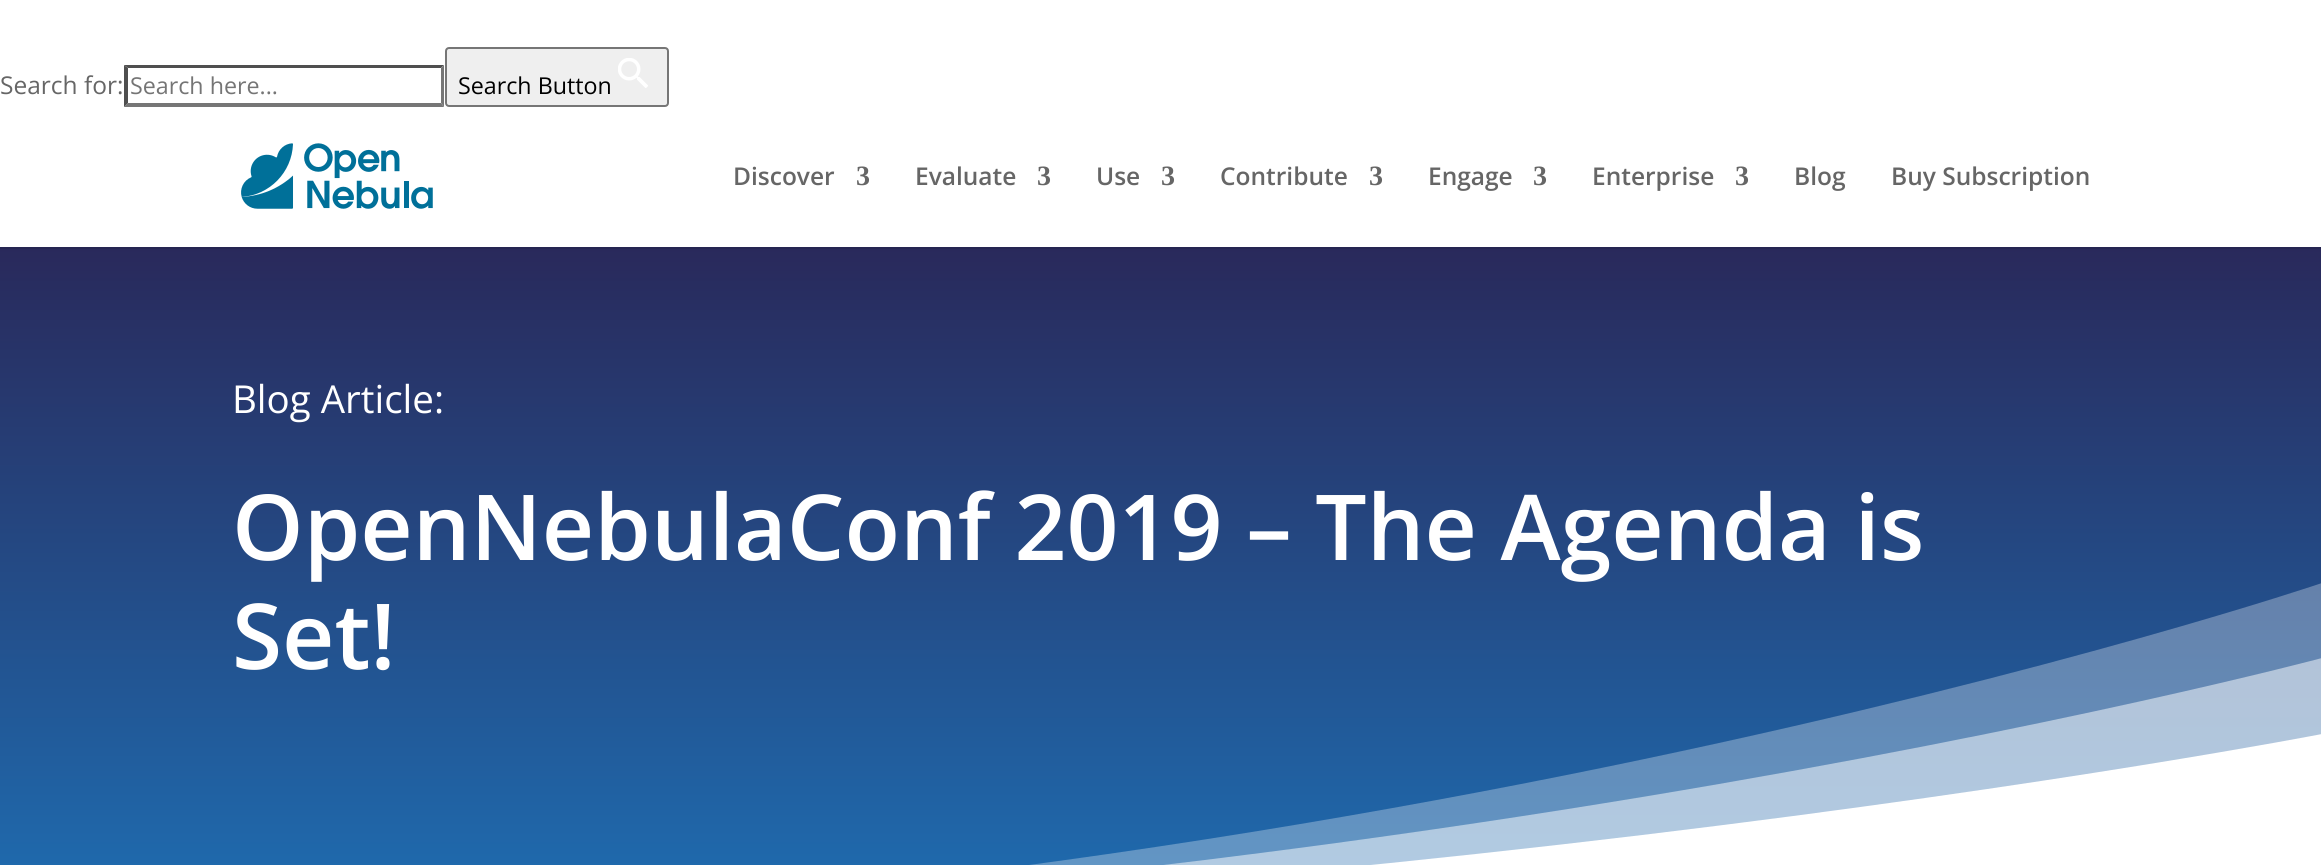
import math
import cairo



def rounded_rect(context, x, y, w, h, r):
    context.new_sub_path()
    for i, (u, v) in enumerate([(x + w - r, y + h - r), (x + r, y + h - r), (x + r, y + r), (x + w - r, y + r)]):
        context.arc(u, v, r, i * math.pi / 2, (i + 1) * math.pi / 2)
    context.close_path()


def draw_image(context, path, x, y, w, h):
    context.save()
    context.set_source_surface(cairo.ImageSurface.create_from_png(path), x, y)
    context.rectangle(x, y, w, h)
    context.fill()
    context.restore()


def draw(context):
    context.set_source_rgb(1, 1, 1)
    context.paint()
    context.set_source_rgb(79 / 255, 79 / 255, 79 / 255)
    context.new_path()
    context.move_to(124, 65)
    context.line_to(444, 65)
    context.line_to(441, 68)
    context.line_to(128, 68)
    context.close_path()
    context.fill()
    context.set_source_rgb(118 / 255, 118 / 255, 118 / 255)
    context.new_path()
    context.move_to(444, 65)
    context.line_to(444, 107)
    context.line_to(441, 103)
    context.line_to(441, 68)
    context.close_path()
    context.fill()
    context.new_path()
    context.move_to(444, 107)
    context.line_to(124, 107)
    context.line_to(128, 103)
    context.line_to(441, 103)
    context.close_path()
    context.fill()
    context.set_source_rgb(79 / 255, 79 / 255, 79 / 255)
    context.new_path()
    context.move_to(124, 107)
    context.line_to(124, 65)
    context.line_to(128, 68)
    context.line_to(128, 103)
    context.close_path()
    context.fill()
    context.set_source_rgb(239 / 255, 239 / 255, 239 / 255)
    rounded_rect(context, 446, 48, 222, 58, 3)
    context.fill_preserve()
    context.set_source_rgb(118 / 255, 118 / 255, 118 / 255)
    context.stroke()
    draw_image(context, "images/1.png", 618, 58, 30, 30)
    context.set_source_rgb(37 / 255, 37 / 255, 82 / 255)
    context.rectangle(0, 247, 2321, 2)
    context.fill()
    draw_image(context, "images/2.png", 241, 143, 192, 66)
    gradient = cairo.LinearGradient(1161, 247, 1161, 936)
    gradient.add_color_stop_rgba(0, 41 / 255, 41 / 255, 91 / 255, 1)
    gradient.add_color_stop_rgba(1, 30 / 255, 112 / 255, 181 / 255, 1)
    context.set_source(gradient)
    context.rectangle(0, 249, 2321, 616)
    context.fill()
    context.set_source_rgba(1, 1, 1, 0.3)
    context.new_path()
    context.move_to(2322, 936)
    context.line_to(0, 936)
    context.curve_to(1283, 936, 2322, 583, 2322, 583)
    context.close_path()
    context.fill()
    context.set_source_rgba(1, 1, 1, 0.5)
    context.new_path()
    context.move_to(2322, 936)
    context.line_to(0, 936)
    context.curve_to(1283, 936, 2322, 658, 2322, 658)
    context.close_path()
    context.fill()
    context.set_source_rgb(1, 1, 1)
    context.new_path()
    context.move_to(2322, 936)
    context.line_to(0, 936)
    context.curve_to(1283, 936, 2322, 734, 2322, 734)
    context.close_path()
    context.fill()
    context.select_font_face("Open Sans")
    context.set_font_size(24.5)
    context.set_source_rgb(102 / 255, 102 / 255, 102 / 255)
    context.move_to(0, 94)
    context.show_text("Search for:")
    context.set_font_size(23.25)
    context.set_source_rgb(117 / 255, 117 / 255, 117 / 255)
    context.move_to(130, 94)
    context.show_text("Search here...")
    context.set_source_rgb(0, 0, 0)
    context.move_to(458, 94)
    context.show_text("Search Button")
    context.select_font_face("Open Sans SemiBold")
    context.set_font_size(24.5)
    context.set_source_rgb(102 / 255, 102 / 255, 102 / 255)
    context.move_to(733, 185)
    context.show_text("Discover")
    context.select_font_face("Liberation Serif", cairo.FontSlant.NORMAL, cairo.FontWeight.BOLD)
    context.set_font_size(28)
    context.move_to(856, 185)
    context.show_text("3")
    context.select_font_face("Open Sans SemiBold")
    context.set_font_size(24.5)
    context.move_to(915, 185)
    context.show_text("Evaluate")
    context.select_font_face("Liberation Serif", cairo.FontSlant.NORMAL, cairo.FontWeight.BOLD)
    context.set_font_size(28)
    context.move_to(1037, 185)
    context.show_text("3")
    context.select_font_face("Open Sans SemiBold")
    context.set_font_size(24.5)
    context.move_to(1096, 185)
    context.show_text("Use")
    context.select_font_face("Liberation Serif", cairo.FontSlant.NORMAL, cairo.FontWeight.BOLD)
    context.set_font_size(28)
    context.move_to(1161, 185)
    context.show_text("3")
    context.select_font_face("Open Sans SemiBold")
    context.set_font_size(24.5)
    context.move_to(1220, 185)
    context.show_text("Contribute")
    context.select_font_face("Liberation Serif", cairo.FontSlant.NORMAL, cairo.FontWeight.BOLD)
    context.set_font_size(28)
    context.move_to(1369, 185)
    context.show_text("3")
    context.select_font_face("Open Sans SemiBold")
    context.set_font_size(24.5)
    context.move_to(1428, 185)
    context.show_text("Engage")
    context.select_font_face("Liberation Serif", cairo.FontSlant.NORMAL, cairo.FontWeight.BOLD)
    context.set_font_size(28)
    context.move_to(1533, 185)
    context.show_text("3")
    context.select_font_face("Open Sans SemiBold")
    context.set_font_size(24.5)
    context.move_to(1592, 185)
    context.show_text("Enterprise")
    context.select_font_face("Liberation Serif", cairo.FontSlant.NORMAL, cairo.FontWeight.BOLD)
    context.set_font_size(28)
    context.move_to(1735, 185)
    context.show_text("3")
    context.select_font_face("Open Sans SemiBold")
    context.set_font_size(24.5)
    context.move_to(1794, 185)
    context.show_text("Blog")
    context.move_to(1891, 185)
    context.show_text("Buy Subscription")
    context.select_font_face("Open Sans")
    context.set_font_size(38.5)
    context.set_source_rgb(1, 1, 1)
    context.move_to(232, 413)
    context.show_text("Blog Article:")
    context.select_font_face("Open Sans SemiBold")
    context.set_font_size(91)
    context.move_to(232, 560)
    context.show_text("OpenNebulaConf 2019 – The Agenda is")
    context.move_to(232, 669)
    context.show_text("Set!")


surface = cairo.ImageSurface(cairo.Format.RGB24, 2321, 865)
context = cairo.Context(surface)
options = cairo.FontOptions()
options.set_hint_metrics(cairo.HintMetrics.OFF)
options.set_hint_style(cairo.HintStyle.NONE)
context.set_font_options(options)
context.set_miter_limit(4)
draw(context)
surface.write_to_png("out.png")
